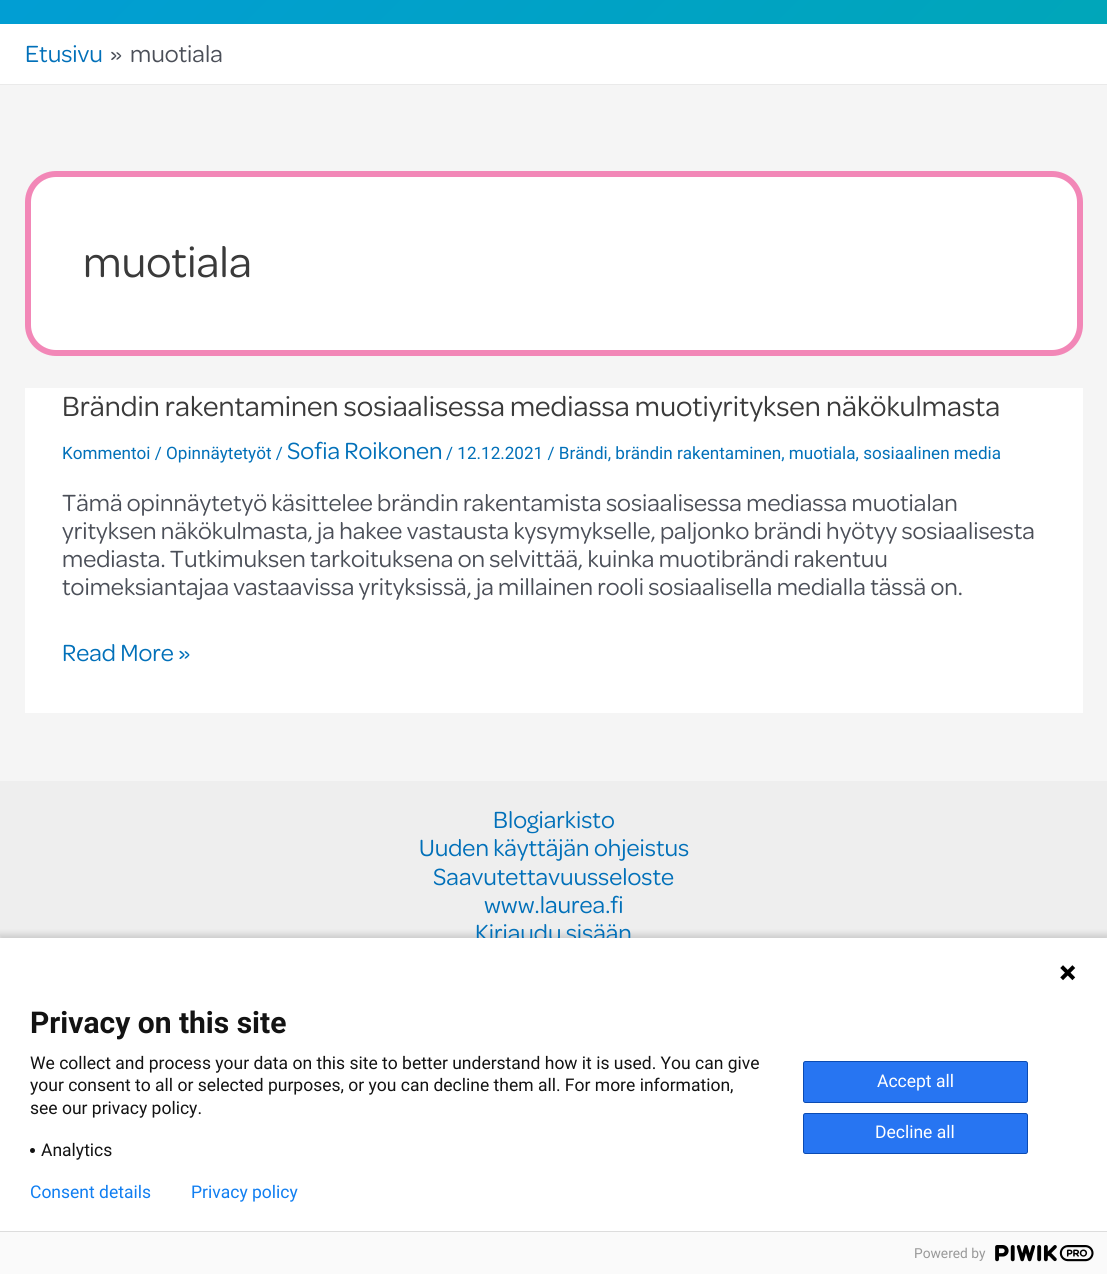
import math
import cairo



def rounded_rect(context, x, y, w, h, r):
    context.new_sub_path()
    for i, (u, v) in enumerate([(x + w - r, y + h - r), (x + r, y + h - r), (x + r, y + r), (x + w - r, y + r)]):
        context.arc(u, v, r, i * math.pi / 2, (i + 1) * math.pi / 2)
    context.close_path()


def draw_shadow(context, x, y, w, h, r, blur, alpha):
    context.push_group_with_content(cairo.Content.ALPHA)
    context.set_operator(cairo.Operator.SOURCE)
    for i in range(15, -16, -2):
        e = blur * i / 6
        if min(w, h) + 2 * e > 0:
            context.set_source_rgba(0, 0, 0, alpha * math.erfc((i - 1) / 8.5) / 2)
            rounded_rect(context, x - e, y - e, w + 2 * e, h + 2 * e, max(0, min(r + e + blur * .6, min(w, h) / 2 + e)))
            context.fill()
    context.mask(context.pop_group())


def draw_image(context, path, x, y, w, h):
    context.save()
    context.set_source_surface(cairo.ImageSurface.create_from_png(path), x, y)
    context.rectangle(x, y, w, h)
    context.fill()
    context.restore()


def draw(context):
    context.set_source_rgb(245 / 255, 245 / 255, 245 / 255)
    context.paint()
    gradient = cairo.LinearGradient(255, -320, 853, 278)
    gradient.add_color_stop_rgba(0, 1 / 255, 157 / 255, 213 / 255, 1)
    gradient.add_color_stop_rgba(1, 0, 166 / 255, 185 / 255, 1)
    context.set_source(gradient)
    context.rectangle(0, 0, 1107, 24)
    context.fill()
    context.set_source_rgb(1, 1, 1)
    context.rectangle(0, 24, 1107, 60)
    context.fill()
    context.set_source_rgb(234 / 255, 234 / 255, 234 / 255)
    context.rectangle(0, 84, 1107, 1)
    context.fill()
    context.set_source_rgb(1, 1, 1)
    rounded_rect(context, 28, 174, 1052, 179, 28)
    context.fill_preserve()
    context.set_source_rgb(242 / 255, 135 / 255, 183 / 255)
    context.set_line_width(6)
    context.stroke()
    context.set_source_rgb(1, 1, 1)
    context.rectangle(25, 388, 1058, 325)
    context.fill()
    context.set_source_rgb(238 / 255, 238 / 255, 238 / 255)
    context.rectangle(0, 781, 1107, 157)
    context.fill()
    context.set_source_rgb(0, 0, 0)
    draw_shadow(context, -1, 934, 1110, 340, 0, 3, 0.14)
    context.set_source_rgb(250 / 255, 250 / 255, 250 / 255)
    context.rectangle(0, 1232, 1107, 42)
    context.fill()
    context.set_source_rgb(221 / 255, 221 / 255, 221 / 255)
    context.rectangle(0, 1231, 1107, 1)
    context.fill()
    draw_image(context, "images/2.png", 995, 1245, 99, 17)
    context.select_font_face("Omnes")
    context.set_font_size(25)
    context.set_source_rgb(1 / 255, 112 / 255, 185 / 255)
    context.move_to(25, 62)
    context.show_text("Etusivu")
    context.set_source_rgb(75 / 255, 79 / 255, 88 / 255)
    context.move_to(110, 62)
    context.show_text("»")
    context.move_to(130, 62)
    context.show_text("muotiala")
    context.set_font_size(45.5)
    context.set_source_rgb(58 / 255, 58 / 255, 58 / 255)
    context.move_to(83, 277)
    context.show_text("muotiala")
    context.set_font_size(29.65)
    context.move_to(62, 416)
    context.show_text("Brändin rakentaminen sosiaalisessa mediassa muotiyrityksen näkökulmasta")
    context.select_font_face("Roboto")
    context.set_font_size(17.1)
    context.set_source_rgb(1 / 255, 112 / 255, 185 / 255)
    context.move_to(62, 459)
    context.show_text("Kommentoi / Opinnäytetyöt /")
    context.select_font_face("Omnes")
    context.set_font_size(25)
    context.move_to(287, 459)
    context.show_text("Sofia Roikonen")
    context.select_font_face("Roboto")
    context.set_font_size(17.1)
    context.move_to(446, 459)
    context.show_text("/ 12.12.2021 / Brändi, brändin rakentaminen, muotiala, sosiaalinen media")
    context.select_font_face("Omnes")
    context.set_font_size(25)
    context.set_source_rgb(75 / 255, 79 / 255, 88 / 255)
    context.move_to(62, 511)
    context.show_text("Tämä opinnäytetyö käsittelee brändin rakentamista sosiaalisessa mediassa muotialan")
    context.move_to(62, 539)
    context.show_text("yrityksen näkökulmasta, ja hakee vastausta kysymykselle, paljonko brändi hyötyy sosiaalisesta")
    context.move_to(62, 567)
    context.show_text("mediasta. Tutkimuksen tarkoituksena on selvittää, kuinka muotibrändi rakentuu")
    context.move_to(62, 595)
    context.show_text("toimeksiantajaa vastaavissa yrityksissä, ja millainen rooli sosiaalisella medialla tässä on.")
    context.set_source_rgb(1 / 255, 112 / 255, 185 / 255)
    context.move_to(62, 661)
    context.show_text("Read More »")
    context.move_to(493, 828)
    context.show_text("Blogiarkisto")
    context.move_to(419, 856)
    context.show_text("Uuden käyttäjän ohjeistus")
    context.move_to(433, 885)
    context.show_text("Saavutettavuusseloste")
    context.move_to(484, 913)
    context.show_text("www.laurea.fi")
    context.move_to(475, 941)
    context.show_text("Kirjaudu sisään")
    context.set_source_rgb(1, 1, 1)
    context.rectangle(0, 938, 1107, 293)
    context.fill()
    draw_image(context, "images/1.png", 1060, 965, 16, 16)
    context.select_font_face("Roboto", cairo.FontSlant.NORMAL, cairo.FontWeight.BOLD)
    context.set_font_size(30)
    context.set_source_rgb(19 / 255, 19 / 255, 19 / 255)
    context.move_to(30, 1033)
    context.show_text("Privacy on this site")
    context.select_font_face("Roboto")
    context.set_font_size(17.5)
    context.move_to(30, 1069)
    context.show_text("We collect and process your data on this site to better understand how it is used. You can give")
    context.move_to(30, 1091)
    context.show_text("your consent to all or selected purposes, or you can decline them all. For more information,")
    context.move_to(30, 1114)
    context.show_text("see our privacy policy.")
    context.new_path()
    context.arc(32.5, 1150.5, 2.5, 0, 2 * math.pi)
    context.fill()
    context.move_to(41, 1156)
    context.show_text("Analytics")
    context.set_source_rgb(39 / 255, 117 / 255, 242 / 255)
    rounded_rect(context, 803.5, 1061.5, 224, 41, 2)
    context.fill_preserve()
    context.set_source_rgb(11 / 255, 75 / 255, 179 / 255)
    context.set_line_width(1)
    context.stroke()
    context.set_source_rgb(1, 1, 1)
    context.move_to(877, 1087)
    context.show_text("Accept all")
    context.set_source_rgb(39 / 255, 117 / 255, 242 / 255)
    rounded_rect(context, 803.5, 1113.5, 224, 40, 2)
    context.fill_preserve()
    context.set_source_rgb(11 / 255, 75 / 255, 179 / 255)
    context.stroke()
    context.set_source_rgb(1, 1, 1)
    context.move_to(875, 1138)
    context.show_text("Decline all")
    context.set_source_rgb(16 / 255, 126 / 255, 241 / 255)
    context.move_to(30, 1198)
    context.show_text("Consent details")
    context.move_to(191, 1198)
    context.show_text("Privacy policy")
    context.set_font_size(13.75)
    context.set_source_rgb(153 / 255, 153 / 255, 153 / 255)
    context.move_to(914, 1258)
    context.show_text("Powered by")


surface = cairo.ImageSurface(cairo.Format.RGB24, 1107, 1274)
context = cairo.Context(surface)
options = cairo.FontOptions()
options.set_hint_metrics(cairo.HintMetrics.OFF)
options.set_hint_style(cairo.HintStyle.NONE)
context.set_font_options(options)
context.set_miter_limit(4)
draw(context)
surface.write_to_png("out.png")
